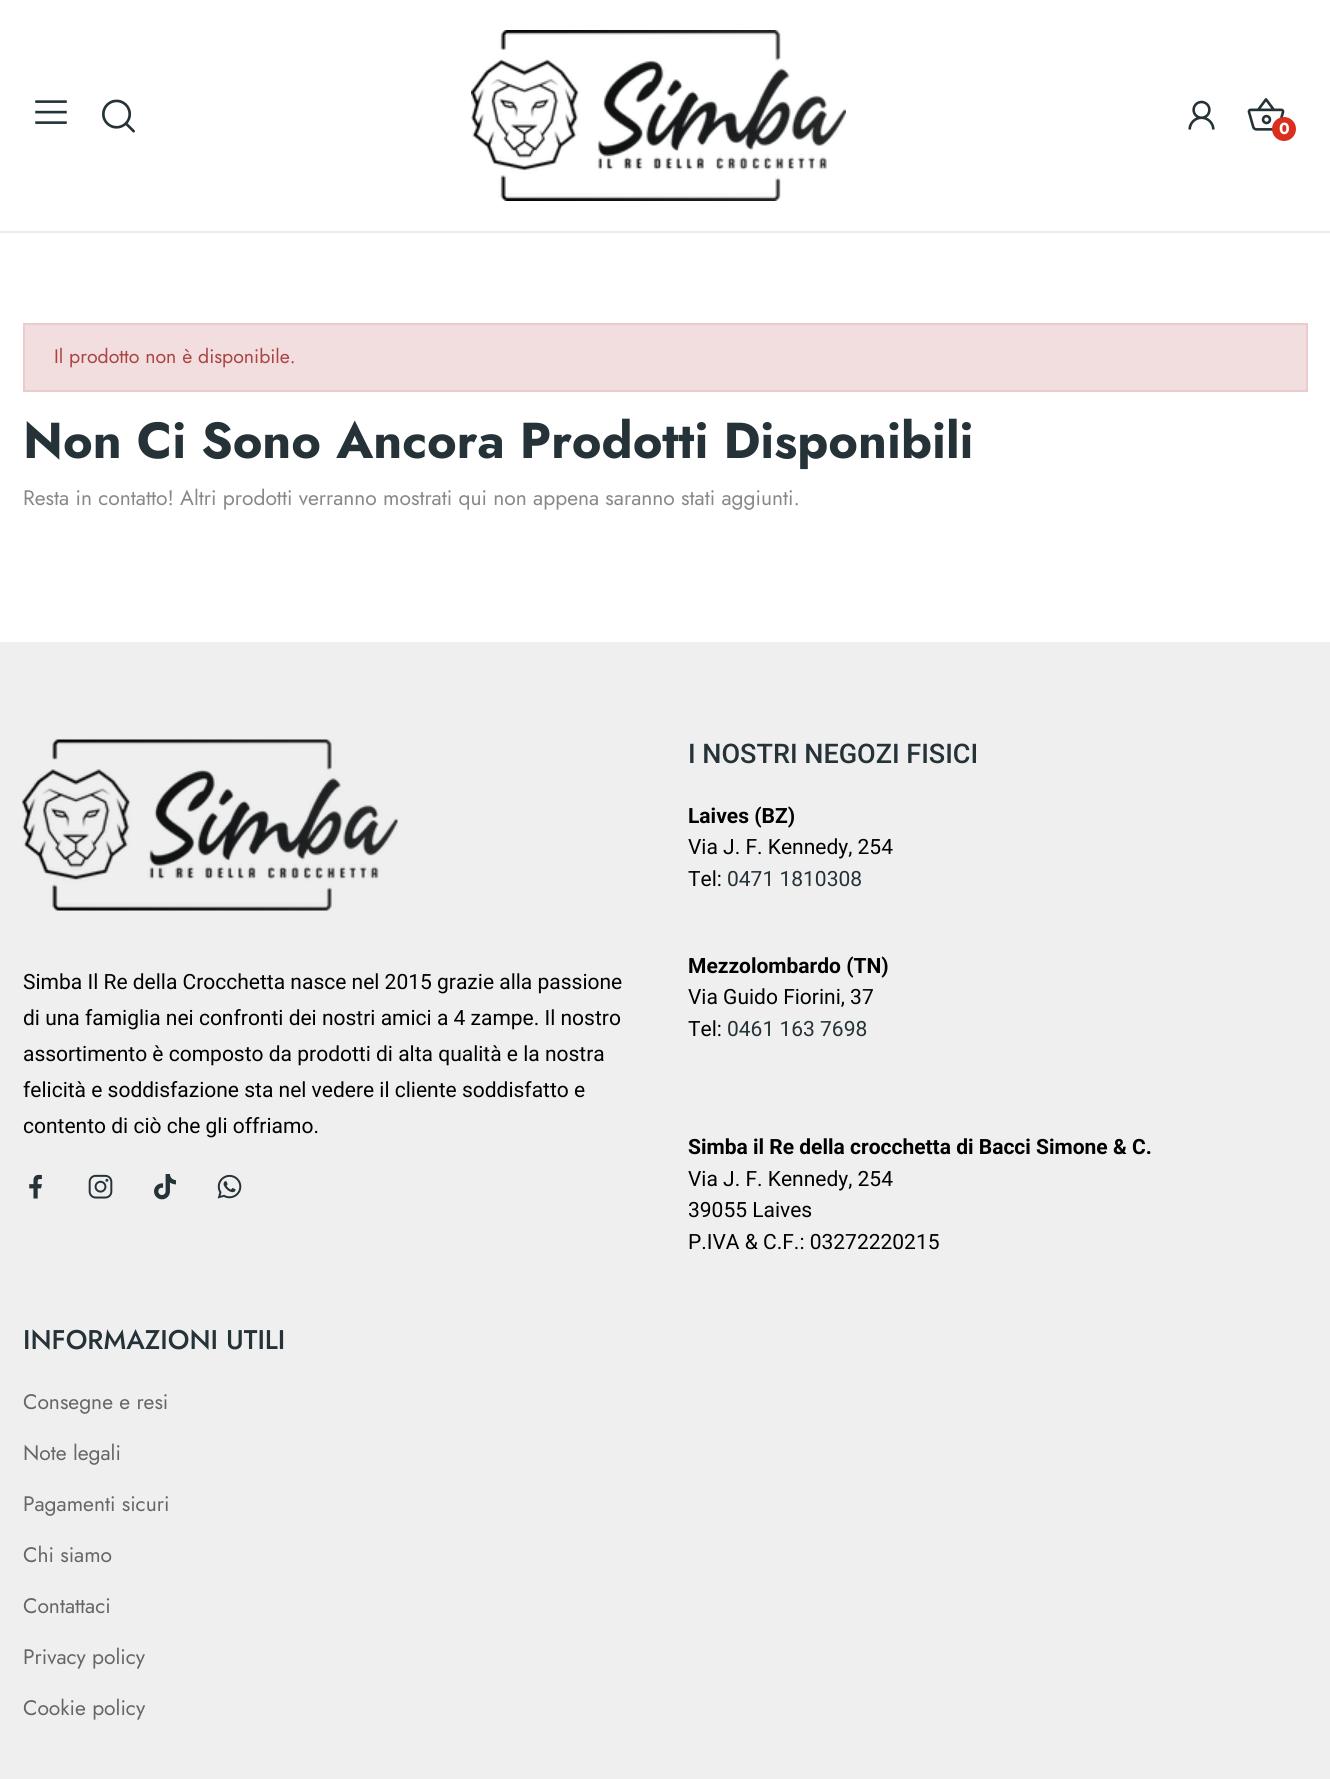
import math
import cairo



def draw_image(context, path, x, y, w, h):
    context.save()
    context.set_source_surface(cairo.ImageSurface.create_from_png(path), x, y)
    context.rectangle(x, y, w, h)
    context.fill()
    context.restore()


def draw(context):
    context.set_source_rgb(1, 1, 1)
    context.paint()
    context.set_source_rgb(235 / 255, 235 / 255, 235 / 255)
    context.rectangle(0, 231, 1330, 2)
    context.fill()
    draw_image(context, "images/1.png", 35, 100, 32, 24)
    draw_image(context, "images/2.png", 102, 99, 33, 34)
    draw_image(context, "images/3.png", 471, 30, 375, 171)
    draw_image(context, "images/4.png", 1188, 100, 27, 30)
    draw_image(context, "images/5.png", 1247, 98, 38, 33)
    context.set_source_rgb(218 / 255, 46 / 255, 31 / 255)
    context.arc(1284, 129, 12, 0, 2 * math.pi)
    context.fill()
    context.set_source_rgb(242 / 255, 222 / 255, 222 / 255)
    context.rectangle(24, 324, 1283, 67)
    context.fill_preserve()
    context.set_source_rgb(235 / 255, 204 / 255, 204 / 255)
    context.stroke()
    context.set_source_rgb(239 / 255, 239 / 255, 239 / 255)
    context.rectangle(0, 642, 1330, 1137)
    context.fill()
    draw_image(context, "images/6.png", 22, 739, 376, 172)
    draw_image(context, "images/7.png", 29, 1174, 13, 25)
    draw_image(context, "images/8.png", 88, 1174, 25, 25)
    draw_image(context, "images/9.png", 154, 1174, 22, 26)
    draw_image(context, "images/10.png", 217, 1174, 25, 25)
    context.select_font_face("Jost", cairo.FontSlant.NORMAL, cairo.FontWeight.BOLD)
    context.set_font_size(16)
    context.set_source_rgb(1, 1, 1)
    context.move_to(1279, 134)
    context.show_text("0")
    context.select_font_face("Jost")
    context.set_font_size(19.5)
    context.set_source_rgb(169 / 255, 68 / 255, 66 / 255)
    context.move_to(54, 363)
    context.show_text("Il prodotto non è disponibile.")
    context.select_font_face("Jost", cairo.FontSlant.NORMAL, cairo.FontWeight.BOLD)
    context.set_font_size(50.4)
    context.set_source_rgb(37 / 255, 50 / 255, 55 / 255)
    context.move_to(23, 458)
    context.show_text("Non Ci Sono Ancora Prodotti Disponibili")
    context.select_font_face("Jost")
    context.set_font_size(21)
    context.set_source_rgb(136 / 255, 136 / 255, 136 / 255)
    context.move_to(23, 505)
    context.show_text("Resta in contatto! Altri prodotti verranno mostrati qui non appena saranno stati aggiunti.")
    context.select_font_face("Roboto")
    context.set_source_rgb(0, 0, 0)
    context.move_to(23, 989)
    context.show_text("Simba Il Re della Crocchetta nasce nel 2015 grazie alla passione")
    context.move_to(23, 1025)
    context.show_text("di una famiglia nei confronti dei nostri amici a 4 zampe. Il nostro")
    context.move_to(23, 1061)
    context.show_text("assortimento è composto da prodotti di alta qualità e la nostra")
    context.move_to(23, 1097)
    context.show_text("felicità e soddisfazione sta nel vedere il cliente soddisfatto e")
    context.move_to(23, 1133)
    context.show_text("contento di ciò che gli offriamo.")
    context.select_font_face("Roboto Medium")
    context.set_font_size(27)
    context.set_source_rgb(37 / 255, 50 / 255, 55 / 255)
    context.move_to(688, 763)
    context.show_text("I NOSTRI NEGOZI FISICI")
    context.select_font_face("Roboto", cairo.FontSlant.NORMAL, cairo.FontWeight.BOLD)
    context.set_font_size(21)
    context.set_source_rgb(0, 0, 0)
    context.move_to(688, 823)
    context.show_text("Laives (BZ)")
    context.select_font_face("Roboto")
    context.move_to(688, 854)
    context.show_text("Via J. F. Kennedy, 254")
    context.move_to(688, 886)
    context.show_text("Tel:")
    context.set_source_rgb(37 / 255, 50 / 255, 55 / 255)
    context.move_to(727, 886)
    context.show_text("0471 1810308")
    context.select_font_face("Roboto", cairo.FontSlant.NORMAL, cairo.FontWeight.BOLD)
    context.set_source_rgb(0, 0, 0)
    context.move_to(688, 973)
    context.show_text("Mezzolombardo (TN)")
    context.select_font_face("Roboto")
    context.move_to(688, 1004)
    context.show_text("Via Guido Fiorini, 37")
    context.move_to(688, 1036)
    context.show_text("Tel:")
    context.set_source_rgb(37 / 255, 50 / 255, 55 / 255)
    context.move_to(727, 1036)
    context.show_text("0461 163 7698")
    context.select_font_face("Roboto", cairo.FontSlant.NORMAL, cairo.FontWeight.BOLD)
    context.set_source_rgb(0, 0, 0)
    context.move_to(688, 1154)
    context.show_text("Simba il Re della crocchetta di Bacci Simone & C.")
    context.select_font_face("Roboto")
    context.move_to(688, 1186)
    context.show_text("Via J. F. Kennedy, 254")
    context.move_to(688, 1217)
    context.show_text("39055 Laives")
    context.move_to(688, 1249)
    context.show_text("P.IVA & C.F.: 03272220215")
    context.select_font_face("Jost Medium")
    context.set_font_size(27)
    context.set_source_rgb(37 / 255, 50 / 255, 55 / 255)
    context.move_to(23, 1349)
    context.show_text("INFORMAZIONI UTILI")
    context.select_font_face("Jost")
    context.set_font_size(21)
    context.set_source_rgb(102 / 255, 102 / 255, 102 / 255)
    context.move_to(23, 1409)
    context.show_text("Consegne e resi")
    context.move_to(23, 1460)
    context.show_text("Note legali")
    context.move_to(23, 1511)
    context.show_text("Pagamenti sicuri")
    context.move_to(23, 1562)
    context.show_text("Chi siamo")
    context.move_to(23, 1613)
    context.show_text("Contattaci")
    context.move_to(23, 1664)
    context.show_text("Privacy policy")
    context.move_to(23, 1715)
    context.show_text("Cookie policy")


surface = cairo.ImageSurface(cairo.Format.RGB24, 1330, 1779)
context = cairo.Context(surface)
options = cairo.FontOptions()
options.set_hint_metrics(cairo.HintMetrics.OFF)
options.set_hint_style(cairo.HintStyle.NONE)
context.set_font_options(options)
context.set_miter_limit(4)
draw(context)
surface.write_to_png("out.png")
